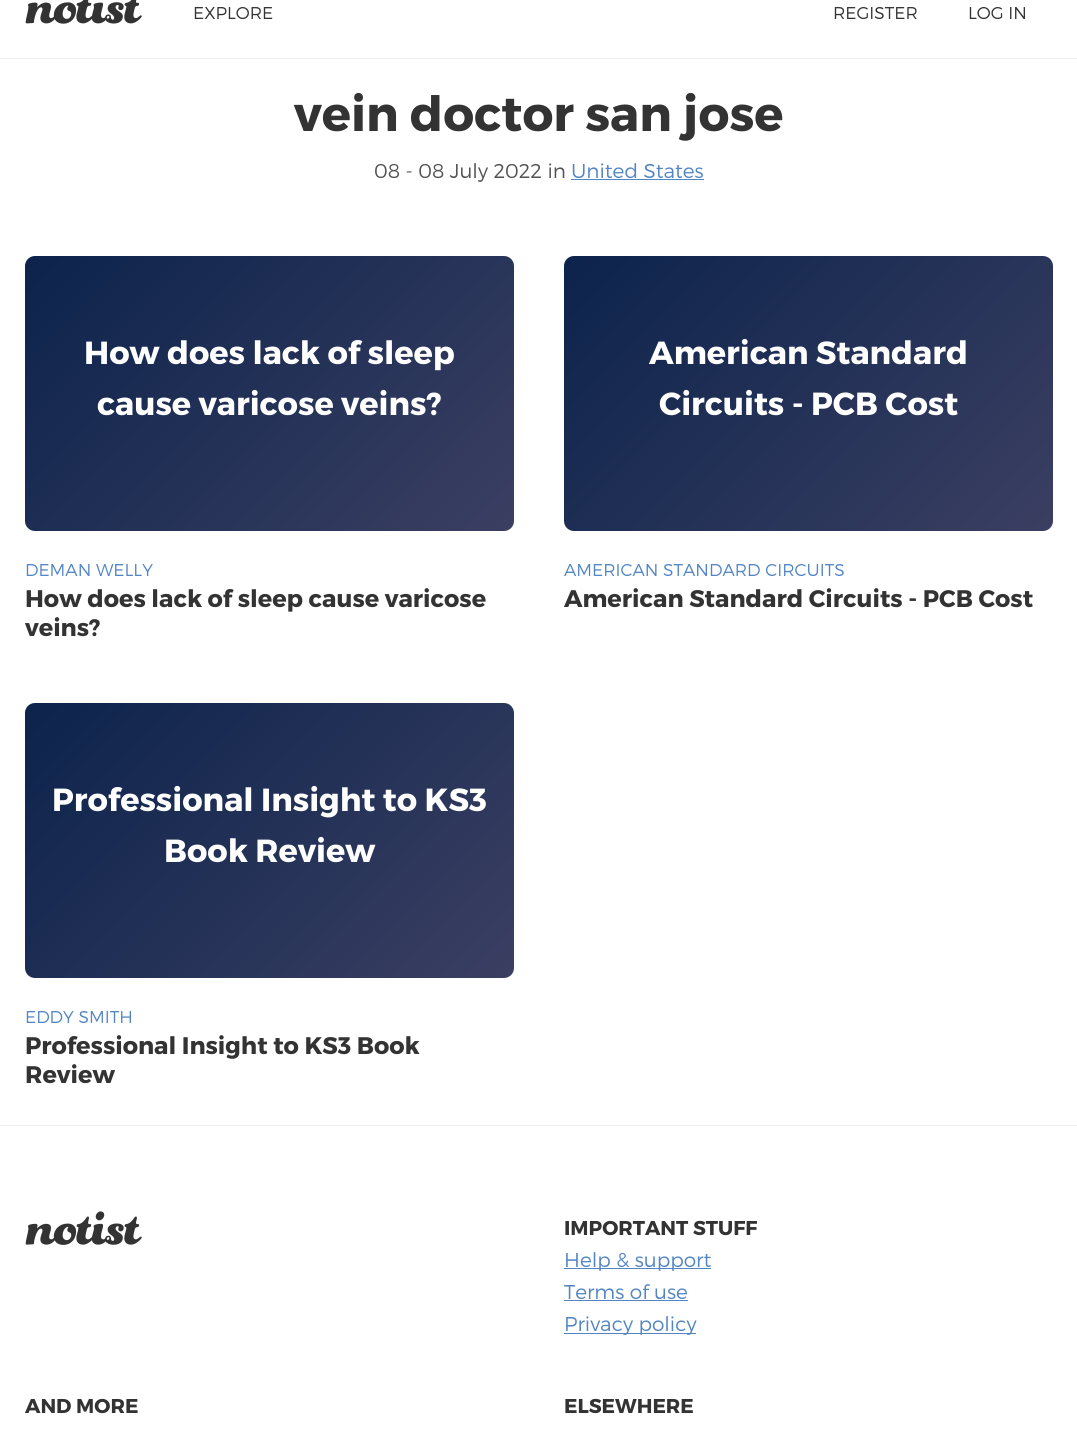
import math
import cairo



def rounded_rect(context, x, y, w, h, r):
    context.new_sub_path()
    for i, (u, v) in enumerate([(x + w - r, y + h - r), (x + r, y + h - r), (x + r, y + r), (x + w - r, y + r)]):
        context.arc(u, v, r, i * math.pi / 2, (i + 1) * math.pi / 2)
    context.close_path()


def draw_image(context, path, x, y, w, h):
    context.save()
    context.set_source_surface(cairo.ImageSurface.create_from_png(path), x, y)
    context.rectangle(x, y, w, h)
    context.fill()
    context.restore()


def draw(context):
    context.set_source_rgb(1, 1, 1)
    context.paint()
    context.set_source_rgb(238 / 255, 238 / 255, 238 / 255)
    context.rectangle(0, 58, 1077, 1)
    context.fill()
    draw_image(context, "images/1.png", 25, 0, 117, 24)
    context.rectangle(0, 1125, 1077, 1)
    context.fill()
    context.set_source_rgb(82 / 255, 133 / 255, 196 / 255)
    context.rectangle(571, 179, 133, 1)
    context.fill()
    gradient = cairo.LinearGradient(78, 203, 460, 585)
    gradient.add_color_stop_rgba(0, 12 / 255, 35 / 255, 76 / 255, 1)
    gradient.add_color_stop_rgba(1, 59 / 255, 63 / 255, 98 / 255, 1)
    context.set_source(gradient)
    rounded_rect(context, 25, 256, 489, 275, 10)
    context.fill()
    gradient = cairo.LinearGradient(617, 203, 999, 585)
    gradient.add_color_stop_rgba(0, 12 / 255, 35 / 255, 76 / 255, 1)
    gradient.add_color_stop_rgba(1, 59 / 255, 63 / 255, 98 / 255, 1)
    context.set_source(gradient)
    rounded_rect(context, 564, 256, 489, 275, 10)
    context.fill()
    gradient = cairo.LinearGradient(78, 649, 460, 1031)
    gradient.add_color_stop_rgba(0, 12 / 255, 35 / 255, 76 / 255, 1)
    gradient.add_color_stop_rgba(1, 59 / 255, 63 / 255, 98 / 255, 1)
    context.set_source(gradient)
    rounded_rect(context, 25, 703, 489, 275, 10)
    context.fill()
    draw_image(context, "images/2.png", 25, 1211, 117, 34)
    context.set_source_rgb(82 / 255, 133 / 255, 196 / 255)
    context.rectangle(564, 1268, 147, 1)
    context.fill()
    context.rectangle(564, 1300, 124, 1)
    context.fill()
    context.rectangle(564, 1333, 132, 1)
    context.fill()
    context.select_font_face("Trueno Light")
    context.set_font_size(17.1)
    context.set_source_rgb(51 / 255, 51 / 255, 51 / 255)
    context.move_to(193, 19)
    context.show_text("EXPLORE")
    context.move_to(833, 19)
    context.show_text("REGISTER")
    context.move_to(968, 19)
    context.show_text("LOG IN")
    context.select_font_face("Trueno", cairo.FontSlant.NORMAL, cairo.FontWeight.BOLD)
    context.set_font_size(48.5)
    context.move_to(294, 131)
    context.show_text("vein doctor san jose")
    context.select_font_face("Trueno Light")
    context.set_font_size(20)
    context.set_source_rgb(83 / 255, 83 / 255, 83 / 255)
    context.move_to(374, 178)
    context.show_text("08 - 08 July 2022 in")
    context.set_source_rgb(82 / 255, 133 / 255, 196 / 255)
    context.move_to(571, 178)
    context.show_text("United States")
    context.select_font_face("Trueno", cairo.FontSlant.NORMAL, cairo.FontWeight.BOLD)
    context.set_font_size(32)
    context.set_source_rgb(1, 1, 1)
    context.move_to(84, 364)
    context.show_text("How does lack of sleep")
    context.move_to(97, 415)
    context.show_text("cause varicose veins?")
    context.select_font_face("Trueno Light")
    context.set_font_size(17.1)
    context.set_source_rgb(82 / 255, 133 / 255, 196 / 255)
    context.move_to(25, 576)
    context.show_text("DEMAN WELLY")
    context.select_font_face("Trueno", cairo.FontSlant.NORMAL, cairo.FontWeight.BOLD)
    context.set_font_size(24)
    context.set_source_rgb(51 / 255, 51 / 255, 51 / 255)
    context.move_to(25, 607)
    context.show_text("How does lack of sleep cause varicose")
    context.move_to(25, 636)
    context.show_text("veins?")
    context.set_font_size(32)
    context.set_source_rgb(1, 1, 1)
    context.move_to(649, 364)
    context.show_text("American Standard")
    context.move_to(659, 415)
    context.show_text("Circuits - PCB Cost")
    context.select_font_face("Trueno Light")
    context.set_font_size(17.1)
    context.set_source_rgb(82 / 255, 133 / 255, 196 / 255)
    context.move_to(564, 576)
    context.show_text("AMERICAN STANDARD CIRCUITS")
    context.select_font_face("Trueno", cairo.FontSlant.NORMAL, cairo.FontWeight.BOLD)
    context.set_font_size(24)
    context.set_source_rgb(51 / 255, 51 / 255, 51 / 255)
    context.move_to(564, 607)
    context.show_text("American Standard Circuits - PCB Cost")
    context.set_font_size(32)
    context.set_source_rgb(1, 1, 1)
    context.move_to(52, 811)
    context.show_text("Professional Insight to KS3")
    context.move_to(164, 862)
    context.show_text("Book Review")
    context.select_font_face("Trueno Light")
    context.set_font_size(17.1)
    context.set_source_rgb(82 / 255, 133 / 255, 196 / 255)
    context.move_to(25, 1023)
    context.show_text("EDDY SMITH")
    context.select_font_face("Trueno", cairo.FontSlant.NORMAL, cairo.FontWeight.BOLD)
    context.set_font_size(24)
    context.set_source_rgb(51 / 255, 51 / 255, 51 / 255)
    context.move_to(25, 1054)
    context.show_text("Professional Insight to KS3 Book")
    context.move_to(25, 1083)
    context.show_text("Review")
    context.set_font_size(20)
    context.move_to(564, 1235)
    context.show_text("IMPORTANT STUFF")
    context.select_font_face("Trueno Light")
    context.set_source_rgb(82 / 255, 133 / 255, 196 / 255)
    context.move_to(564, 1267)
    context.show_text("Help & support")
    context.move_to(564, 1299)
    context.show_text("Terms of use")
    context.move_to(564, 1331)
    context.show_text("Privacy policy")
    context.select_font_face("Trueno", cairo.FontSlant.NORMAL, cairo.FontWeight.BOLD)
    context.set_source_rgb(51 / 255, 51 / 255, 51 / 255)
    context.move_to(25, 1413)
    context.show_text("AND MORE")
    context.move_to(564, 1413)
    context.show_text("ELSEWHERE")


surface = cairo.ImageSurface(cairo.Format.RGB24, 1077, 1436)
context = cairo.Context(surface)
options = cairo.FontOptions()
options.set_hint_metrics(cairo.HintMetrics.OFF)
options.set_hint_style(cairo.HintStyle.NONE)
context.set_font_options(options)
context.set_miter_limit(4)
draw(context)
surface.write_to_png("out.png")
